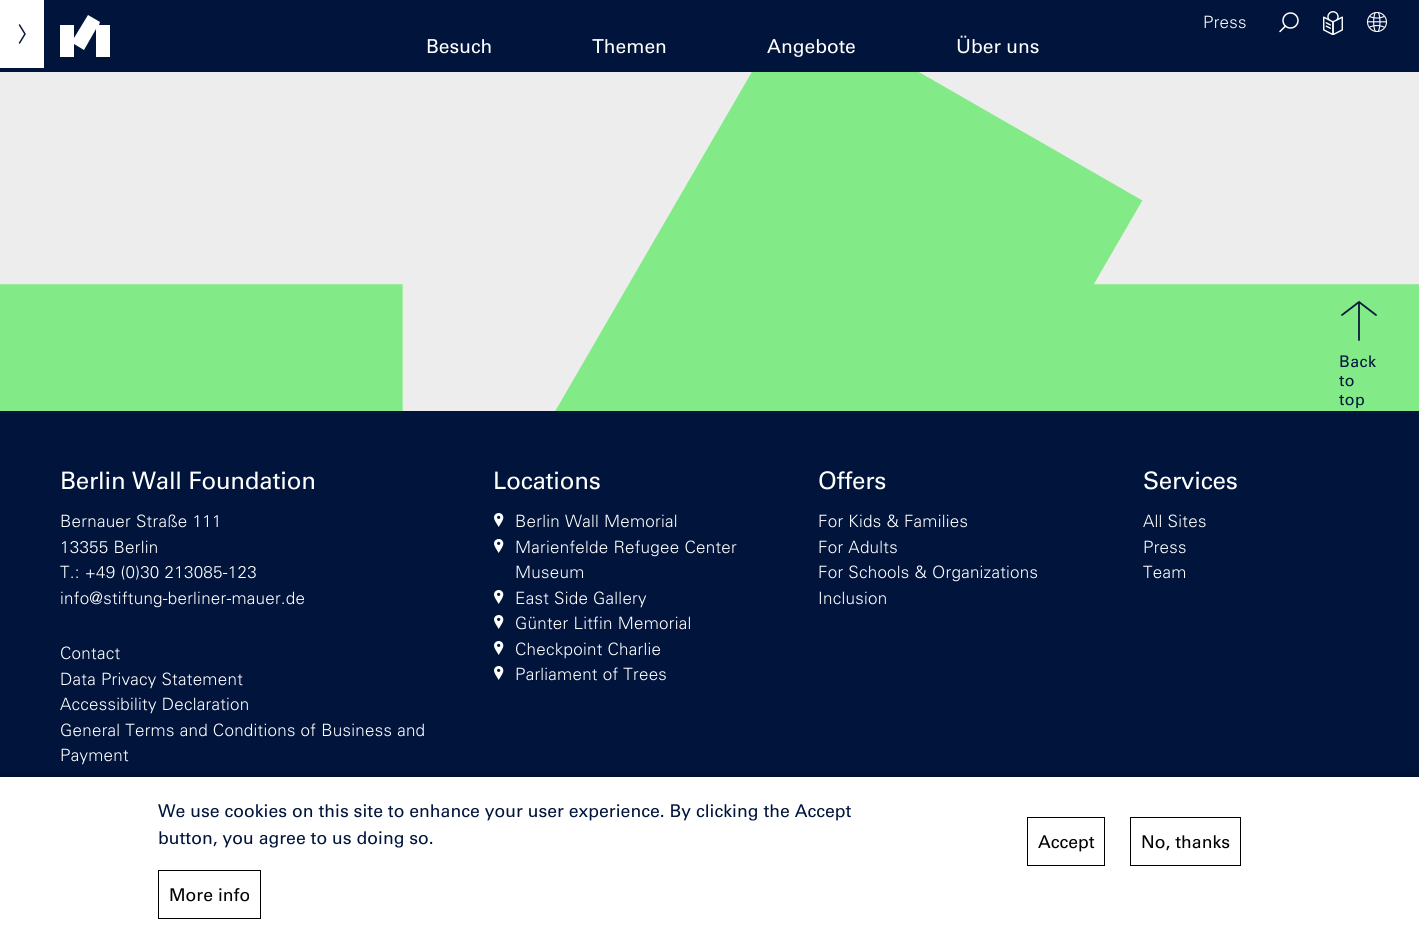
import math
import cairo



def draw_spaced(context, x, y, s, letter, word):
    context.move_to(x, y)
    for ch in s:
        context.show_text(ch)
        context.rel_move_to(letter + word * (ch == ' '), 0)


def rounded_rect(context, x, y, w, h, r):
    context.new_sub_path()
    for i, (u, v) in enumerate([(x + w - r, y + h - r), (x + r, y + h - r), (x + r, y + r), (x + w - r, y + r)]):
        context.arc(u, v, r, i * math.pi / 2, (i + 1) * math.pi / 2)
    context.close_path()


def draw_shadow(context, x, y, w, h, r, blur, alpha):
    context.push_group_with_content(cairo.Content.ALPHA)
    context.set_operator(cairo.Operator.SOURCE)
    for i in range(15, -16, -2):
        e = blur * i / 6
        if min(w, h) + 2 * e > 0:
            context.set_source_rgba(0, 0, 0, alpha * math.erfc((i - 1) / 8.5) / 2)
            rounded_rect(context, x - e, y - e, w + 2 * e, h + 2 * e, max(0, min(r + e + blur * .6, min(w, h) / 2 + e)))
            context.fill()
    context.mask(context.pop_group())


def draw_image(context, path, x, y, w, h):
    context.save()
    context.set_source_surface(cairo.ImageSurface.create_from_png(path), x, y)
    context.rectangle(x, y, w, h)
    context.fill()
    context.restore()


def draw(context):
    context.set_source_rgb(237 / 255, 237 / 255, 237 / 255)
    context.paint()
    draw_image(context, "images/1.png", 0, 72, 1419, 339)
    context.set_source_rgb(0, 20 / 255, 60 / 255)
    context.rectangle(0, 0, 1419, 72)
    context.fill()
    context.set_source_rgb(1, 1, 1)
    context.rectangle(0, 0, 44, 68)
    context.fill()
    context.new_path()
    context.move_to(19.5, 43)
    context.line_to(25, 34)
    context.line_to(19.5, 25)
    context.set_source_rgb(10 / 255, 23 / 255, 60 / 255)
    context.set_line_width(1.5)
    context.set_line_cap(cairo.LineCap.ROUND)
    context.stroke()
    context.arc(1290.5, 20.5, 7.5, 0, 2 * math.pi)
    context.set_source_rgb(1, 1, 1)
    context.set_line_cap(cairo.LineCap.BUTT)
    context.stroke()
    context.new_path()
    context.move_to(1285.5, 26)
    context.line_to(1280, 31.5)
    context.set_line_cap(cairo.LineCap.ROUND)
    context.stroke()
    draw_image(context, "images/2.png", 1323, 11, 20, 24)
    draw_image(context, "images/3.png", 1367, 12, 20, 20)
    context.new_path()
    context.move_to(110, 25)
    context.line_to(110, 57)
    context.line_to(96, 57)
    context.line_to(96, 29)
    context.line_to(84, 50)
    context.line_to(74, 44)
    context.line_to(74, 57)
    context.line_to(60, 57)
    context.line_to(60, 25)
    context.line_to(74, 25)
    context.line_to(74, 38)
    context.line_to(88, 15)
    context.line_to(100, 22)
    context.line_to(99, 25)
    context.close_path()
    context.fill()
    context.new_path()
    context.move_to(1342, 315)
    context.line_to(1359, 302)
    context.line_to(1376, 315)
    context.move_to(1359, 303)
    context.line_to(1359, 340)
    context.set_source_rgb(10 / 255, 23 / 255, 60 / 255)
    context.set_line_width(1.8)
    context.stroke()
    context.set_source_rgb(0, 20 / 255, 60 / 255)
    context.rectangle(0, 411, 1419, 366)
    context.fill()
    draw_image(context, "images/4.png", 494, 513, 10, 14)
    draw_image(context, "images/4.png", 494, 539, 10, 14)
    draw_image(context, "images/4.png", 494, 590, 10, 14)
    draw_image(context, "images/4.png", 494, 615, 10, 14)
    draw_image(context, "images/4.png", 494, 641, 10, 14)
    draw_image(context, "images/4.png", 494, 666, 10, 14)
    context.set_source_rgb(0, 0, 0)
    draw_shadow(context, 0, 777, 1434, 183, 0, 5, 0.4)
    context.set_source_rgb(1, 1, 1)
    context.rectangle(0, 777, 1419, 168)
    context.fill()
    context.rectangle(158.5, 870.5, 102, 48)
    context.set_source_rgb(0, 0, 0)
    context.set_line_width(1)
    context.set_line_cap(cairo.LineCap.BUTT)
    context.stroke()
    context.rectangle(1027.5, 817.5, 77, 48)
    context.stroke()
    context.rectangle(1130.5, 817.5, 110, 48)
    context.stroke()
    context.select_font_face("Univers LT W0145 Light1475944 Light")
    context.set_font_size(17)
    context.set_source_rgb(1, 1, 1)
    draw_spaced(context, 1203, 28, "Press", 0.25, 0)
    context.select_font_face("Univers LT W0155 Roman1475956")
    context.set_font_size(19.25)
    context.move_to(426, 53)
    context.show_text("Besuch")
    context.move_to(592, 53)
    context.show_text("Themen")
    context.move_to(767, 53)
    context.show_text("Angebote")
    context.move_to(956, 53)
    context.show_text("Über uns")
    context.set_font_size(16)
    context.set_source_rgb(0, 20 / 255, 60 / 255)
    draw_spaced(context, 1339, 367, "Back", 0.5, 0)
    draw_spaced(context, 1339, 386, "to", 0.5, 0)
    draw_spaced(context, 1339, 405, "top", 0.5, 0)
    context.set_font_size(24.1)
    context.set_source_rgb(1, 1, 1)
    draw_spaced(context, 60, 489, "Berlin Wall Foundation", -0.25, 0)
    context.select_font_face("Univers LT W0145 Light1475944 Light")
    context.set_font_size(17)
    draw_spaced(context, 60, 527, "Bernauer Straße 111", 0.25, 0)
    draw_spaced(context, 60, 553, "13355 Berlin", 0.25, 0)
    draw_spaced(context, 60, 578, "T.: +49 (0)30 213085-123", 0.25, 0)
    draw_spaced(context, 60, 604, "info@stiftung-berliner-mauer.de", 0.25, 0)
    draw_spaced(context, 60, 659, "Contact", 0.25, 0)
    draw_spaced(context, 60, 685, "Data Privacy Statement", 0.25, 0)
    draw_spaced(context, 60, 710, "Accessibility Declaration", 0.25, 0)
    draw_spaced(context, 60, 736, "General Terms and Conditions of Business and", 0.25, 0)
    draw_spaced(context, 60, 761, "Payment", 0.25, 0)
    context.select_font_face("Univers LT W0155 Roman1475956")
    context.set_font_size(24.1)
    draw_spaced(context, 493, 489, "Locations", -0.25, 0)
    context.select_font_face("Univers LT W0145 Light1475944 Light")
    context.set_font_size(17)
    draw_spaced(context, 515, 527, "Berlin Wall Memorial", 0.25, 0)
    draw_spaced(context, 515, 553, "Marienfelde Refugee Center", 0.25, 0)
    draw_spaced(context, 515, 578, "Museum", 0.25, 0)
    draw_spaced(context, 515, 604, "East Side Gallery", 0.25, 0)
    draw_spaced(context, 515, 629, "Günter Litfin Memorial", 0.25, 0)
    draw_spaced(context, 515, 655, "Checkpoint Charlie", 0.25, 0)
    draw_spaced(context, 515, 680, "Parliament of Trees", 0.25, 0)
    context.select_font_face("Univers LT W0155 Roman1475956")
    context.set_font_size(24.1)
    draw_spaced(context, 818, 489, "Offers", -0.25, 0)
    context.select_font_face("Univers LT W0145 Light1475944 Light")
    context.set_font_size(17)
    draw_spaced(context, 818, 527, "For Kids & Families", 0.25, 0)
    draw_spaced(context, 818, 553, "For Adults", 0.25, 0)
    draw_spaced(context, 818, 578, "For Schools & Organizations", 0.25, 0)
    draw_spaced(context, 818, 604, "Inclusion", 0.25, 0)
    context.select_font_face("Univers LT W0155 Roman1475956")
    context.set_font_size(24.1)
    draw_spaced(context, 1143, 489, "Services", -0.25, 0)
    context.select_font_face("Univers LT W0145 Light1475944 Light")
    context.set_font_size(17)
    draw_spaced(context, 1143, 527, "All Sites", 0.25, 0)
    draw_spaced(context, 1143, 553, "Press", 0.25, 0)
    draw_spaced(context, 1143, 578, "Team", 0.25, 0)
    context.select_font_face("Univers LT W0155 Roman1475956")
    context.set_font_size(17.6)
    context.set_source_rgb(0, 20 / 255, 60 / 255)
    context.move_to(158, 817)
    context.show_text("We use cookies on this site to enhance your user experience. By clicking the Accept")
    context.move_to(158, 844)
    context.show_text("button, you agree to us doing so.")
    context.set_source_rgb(0, 0, 0)
    context.move_to(169, 901)
    context.show_text("More info")
    context.move_to(1038, 848)
    context.show_text("Accept")
    context.move_to(1141, 848)
    context.show_text("No, thanks")


surface = cairo.ImageSurface(cairo.Format.RGB24, 1419, 945)
context = cairo.Context(surface)
options = cairo.FontOptions()
options.set_hint_metrics(cairo.HintMetrics.OFF)
options.set_hint_style(cairo.HintStyle.NONE)
context.set_font_options(options)
context.set_miter_limit(4)
draw(context)
surface.write_to_png("out.png")
